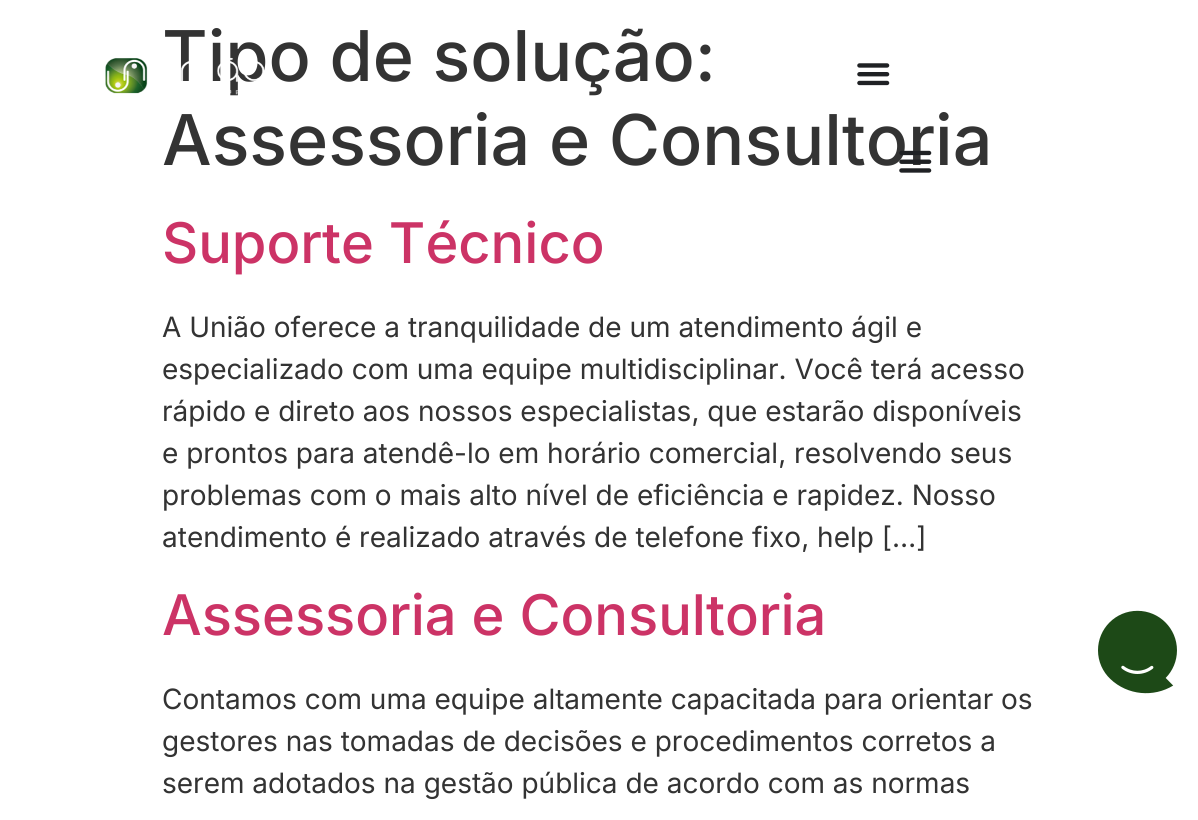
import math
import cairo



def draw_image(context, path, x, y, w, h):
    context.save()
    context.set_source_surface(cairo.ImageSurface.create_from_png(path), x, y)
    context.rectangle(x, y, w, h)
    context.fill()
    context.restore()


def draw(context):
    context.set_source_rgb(1, 1, 1)
    context.paint()
    draw_image(context, "images/2.png", 857, 63, 33, 23)
    draw_image(context, "images/4.png", 1098, 610, 79, 84)
    context.select_font_face("Inter Medium")
    context.set_font_size(70)
    context.set_source_rgb(51 / 255, 51 / 255, 51 / 255)
    context.move_to(162, 81)
    context.show_text("Tipo de solução:")
    context.move_to(162, 165)
    context.show_text("Assessoria e Consultoria")
    context.set_font_size(56)
    context.set_source_rgb(204 / 255, 51 / 255, 102 / 255)
    context.move_to(162, 263)
    context.show_text("Suporte Técnico")
    context.select_font_face("Inter")
    context.set_font_size(28)
    context.set_source_rgb(51 / 255, 51 / 255, 51 / 255)
    context.move_to(162, 337)
    context.show_text("A União oferece a tranquilidade de um atendimento ágil e")
    context.move_to(162, 379)
    context.show_text("especializado com uma equipe multidisciplinar. Você terá acesso")
    context.move_to(162, 421)
    context.show_text("rápido e direto aos nossos especialistas, que estarão disponíveis")
    context.move_to(162, 463)
    context.show_text("e prontos para atendê-lo em horário comercial, resolvendo seus")
    context.move_to(162, 505)
    context.show_text("problemas com o mais alto nível de eficiência e rapidez. Nosso")
    context.move_to(162, 547)
    context.show_text("atendimento é realizado através de telefone fixo, help […]")
    context.select_font_face("Inter Medium")
    context.set_font_size(56)
    context.set_source_rgb(204 / 255, 51 / 255, 102 / 255)
    context.move_to(162, 635)
    context.show_text("Assessoria e Consultoria")
    context.select_font_face("Inter")
    context.set_font_size(28)
    context.set_source_rgb(51 / 255, 51 / 255, 51 / 255)
    context.move_to(162, 709)
    context.show_text("Contamos com uma equipe altamente capacitada para orientar os")
    context.move_to(162, 751)
    context.show_text("gestores nas tomadas de decisões e procedimentos corretos a")
    context.move_to(162, 793)
    context.show_text("serem adotados na gestão pública de acordo com as normas")
    draw_image(context, "images/1.png", 105, 57, 159, 38)
    draw_image(context, "images/3.png", 899, 150, 33, 23)


surface = cairo.ImageSurface(cairo.Format.RGB24, 1198, 820)
context = cairo.Context(surface)
options = cairo.FontOptions()
options.set_hint_metrics(cairo.HintMetrics.OFF)
options.set_hint_style(cairo.HintStyle.NONE)
context.set_font_options(options)
context.set_miter_limit(4)
draw(context)
surface.write_to_png("out.png")
